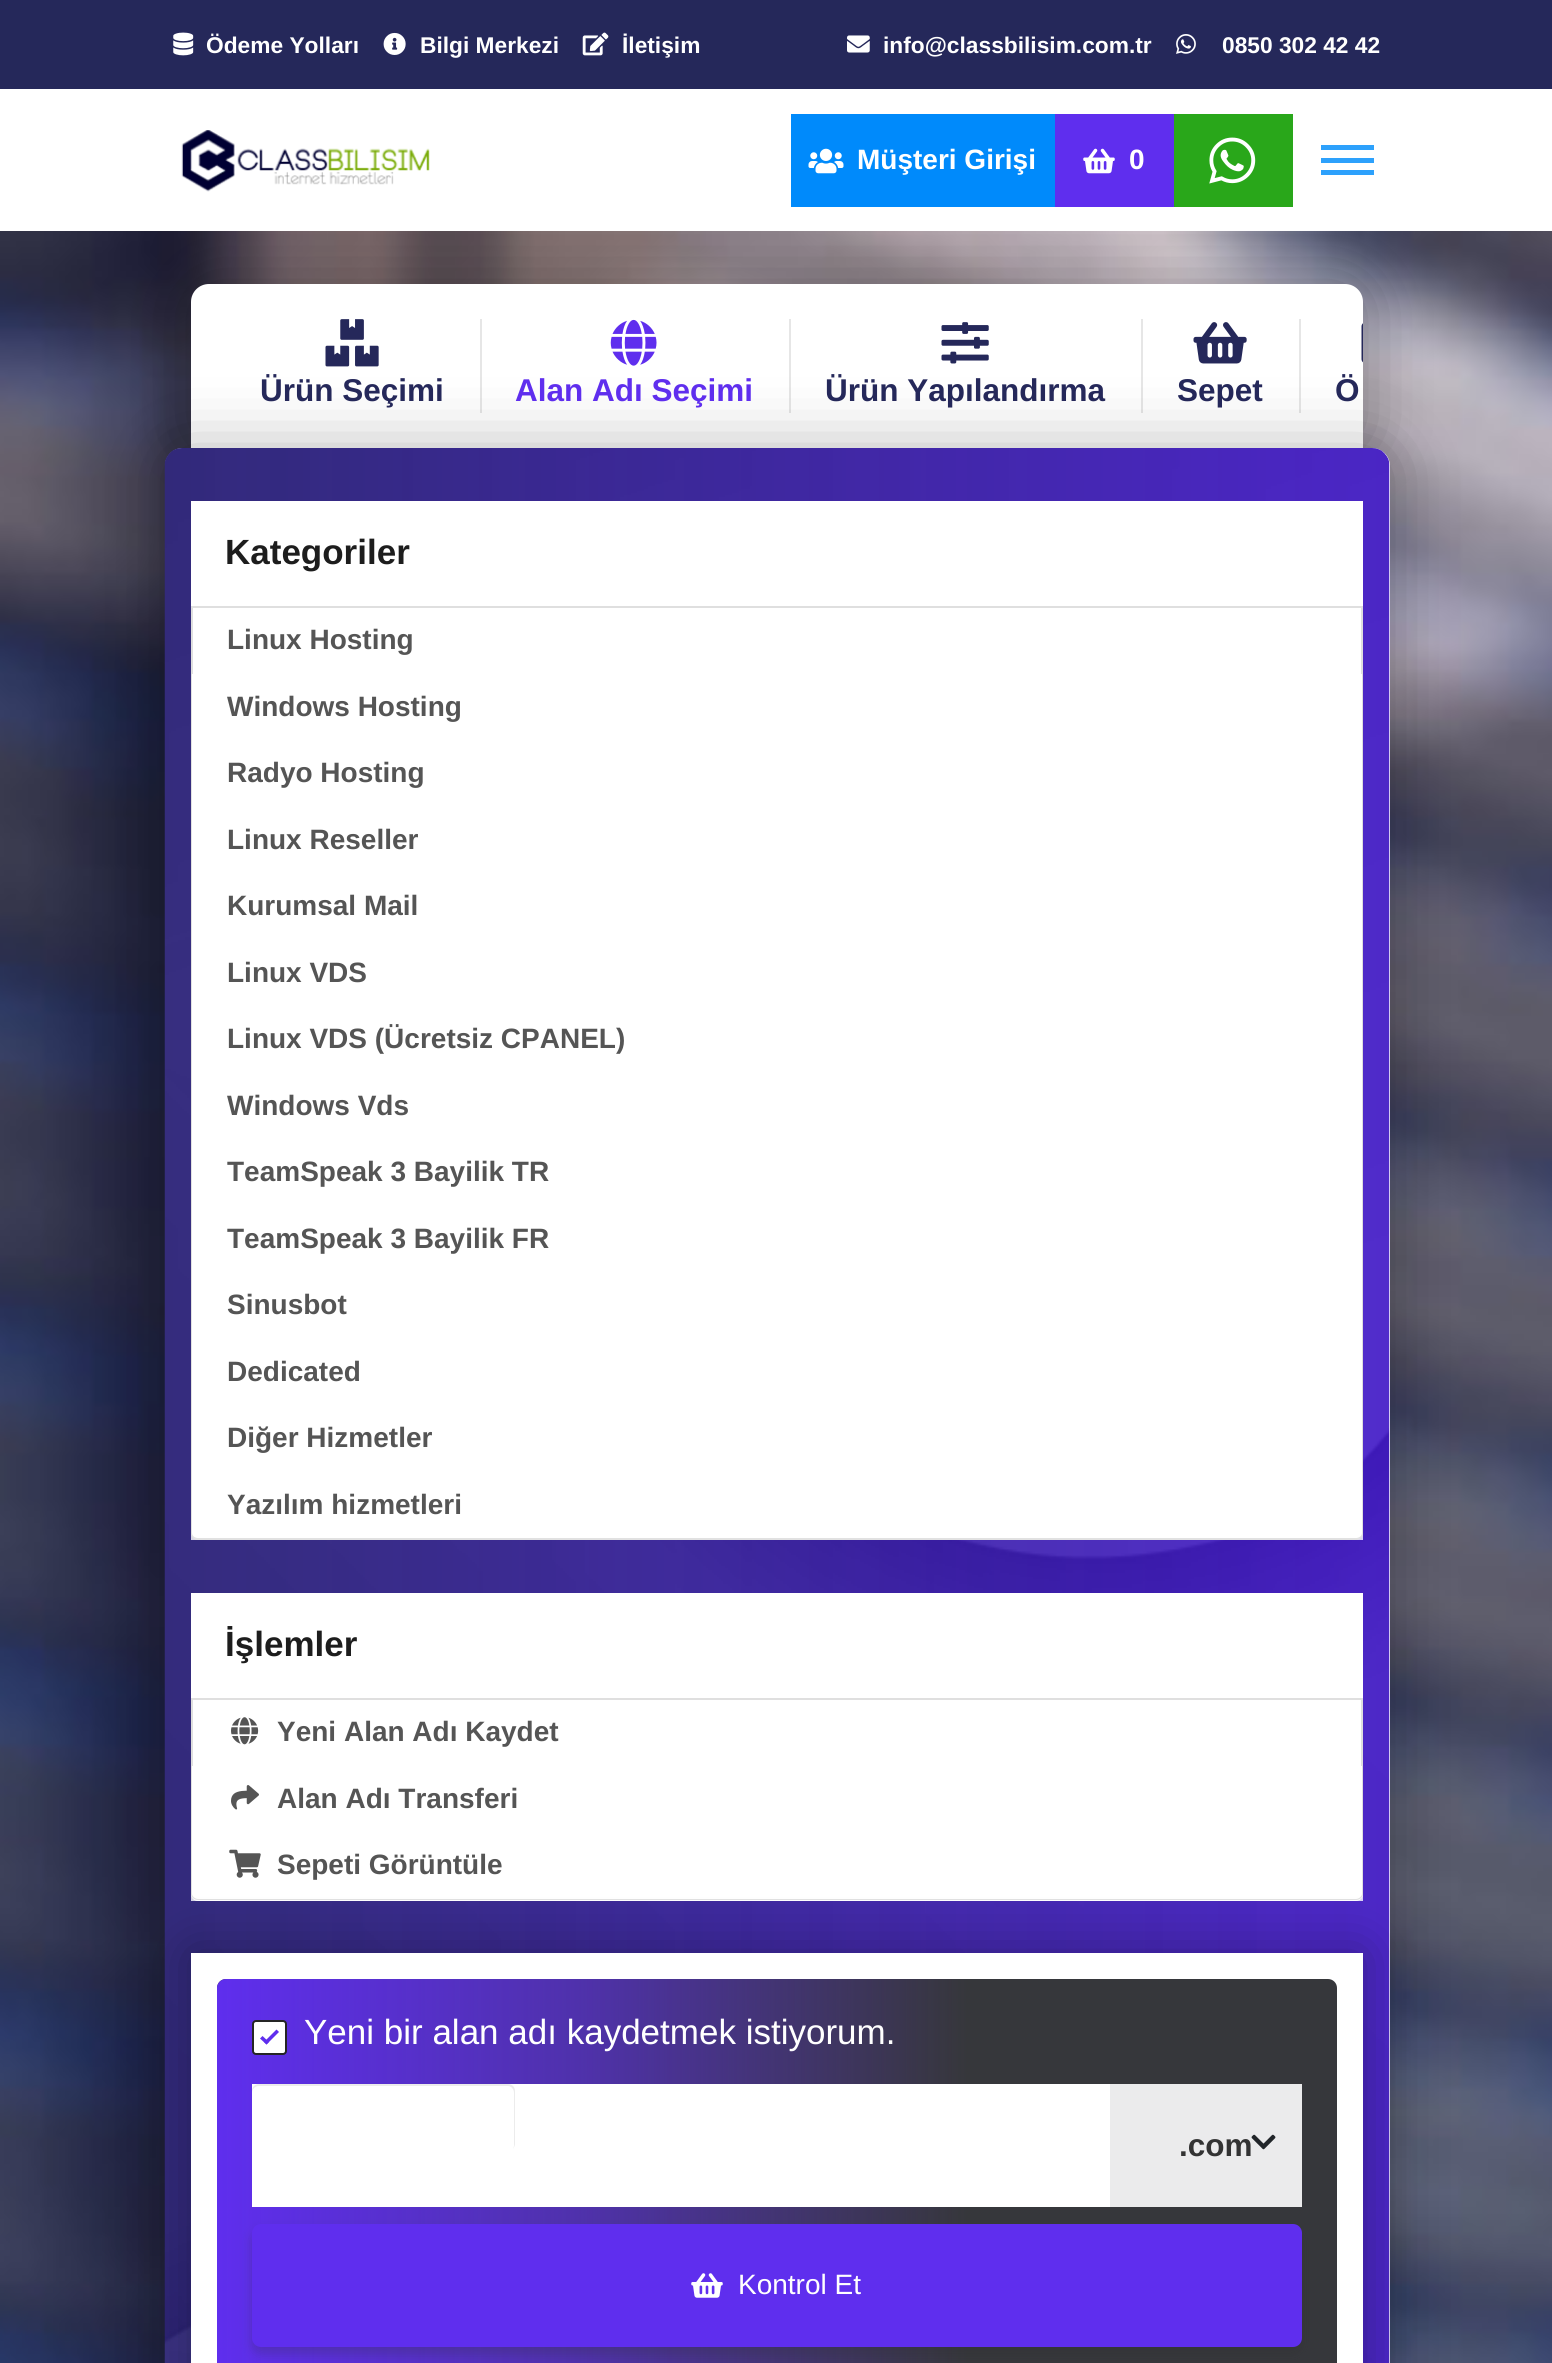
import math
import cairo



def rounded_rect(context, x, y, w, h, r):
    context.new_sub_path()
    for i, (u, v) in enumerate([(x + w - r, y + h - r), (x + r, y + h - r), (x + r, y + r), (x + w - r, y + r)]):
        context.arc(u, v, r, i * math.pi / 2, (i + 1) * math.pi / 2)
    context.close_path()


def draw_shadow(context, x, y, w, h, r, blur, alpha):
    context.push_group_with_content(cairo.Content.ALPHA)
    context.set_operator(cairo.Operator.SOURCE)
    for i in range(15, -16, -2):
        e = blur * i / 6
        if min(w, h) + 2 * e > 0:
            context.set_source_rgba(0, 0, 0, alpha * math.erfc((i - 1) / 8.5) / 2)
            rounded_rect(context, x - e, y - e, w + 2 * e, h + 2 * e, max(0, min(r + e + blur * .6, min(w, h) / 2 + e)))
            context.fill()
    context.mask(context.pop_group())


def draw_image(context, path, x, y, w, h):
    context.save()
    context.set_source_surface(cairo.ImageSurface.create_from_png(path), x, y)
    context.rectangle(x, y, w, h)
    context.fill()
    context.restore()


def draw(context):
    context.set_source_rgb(37 / 255, 40 / 255, 90 / 255)
    context.paint()
    draw_image(context, "images/1.png", 173, 32, 21, 24)
    draw_image(context, "images/2.png", 383, 32, 23, 23)
    draw_image(context, "images/3.png", 582, 32, 27, 24)
    draw_image(context, "images/4.png", 847, 35, 23, 18)
    draw_image(context, "images/5.png", 1176, 34, 20, 20)
    draw_image(context, "images/10.png", 0, 231, 1552, 2132)
    context.set_source_rgb(0, 0, 0)
    draw_shadow(context, 191, 284, 1172, 164, 18, 33, 0.28)
    context.set_source_rgb(1, 1, 1)
    context.rectangle(0, 89, 1552, 142)
    context.fill()
    draw_image(context, "images/6.png", 181, 130, 249, 62)
    context.set_source_rgb(0, 138 / 255, 251 / 255)
    context.rectangle(791, 114, 264, 93)
    context.fill()
    draw_image(context, "images/7.png", 808, 148, 36, 26)
    context.set_source_rgb(95 / 255, 46 / 255, 238 / 255)
    context.rectangle(1055, 114, 119, 93)
    context.fill()
    draw_image(context, "images/8.png", 1083, 148, 32, 26)
    context.set_source_rgb(41 / 255, 167 / 255, 26 / 255)
    context.rectangle(1174, 114, 119, 93)
    context.fill()
    draw_image(context, "images/9.png", 1209, 137, 47, 47)
    context.set_source_rgb(45 / 255, 161 / 255, 252 / 255)
    context.rectangle(1321, 158, 53, 5)
    context.fill()
    context.rectangle(1321, 145, 53, 5)
    context.fill()
    context.rectangle(1321, 170, 53, 5)
    context.fill()
    context.set_source_rgb(1, 1, 1)
    context.new_path()
    context.move_to(209, 284)
    context.line_to(1345, 284)
    context.curve_to(1355, 284, 1363, 292, 1363, 302)
    context.line_to(1363, 448)
    context.line_to(191, 448)
    context.line_to(191, 302)
    context.curve_to(191, 292, 199, 284, 209, 284)
    context.close_path()
    context.fill()
    context.set_source_rgb(230 / 255, 230 / 255, 230 / 255)
    context.rectangle(480, 319, 2, 94)
    context.fill()
    draw_image(context, "images/11.png", 325, 319, 54, 48)
    context.rectangle(789, 319, 2, 94)
    context.fill()
    draw_image(context, "images/12.png", 610, 319, 47, 47)
    context.rectangle(1141, 319, 2, 94)
    context.fill()
    draw_image(context, "images/13.png", 941, 322, 48, 42)
    context.rectangle(1299, 319, 2, 94)
    context.fill()
    draw_image(context, "images/14.png", 1193, 322, 54, 42)
    draw_image(context, "images/15.png", 1361, 323, 2, 40)
    context.set_source_rgb(0, 0, 0)
    draw_shadow(context, 165, 448, 1225, 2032, 18, 33, 0.28)
    context.set_source_rgb(1, 1, 1)
    rounded_rect(context, 165, 448, 1225, 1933, 18)
    context.fill()
    draw_image(context, "images/16.png", 164, 448, 1226, 1915)
    context.set_source_rgba(1, 1, 1, 0.8)
    context.rectangle(191, 1533, 1172, 7)
    context.fill()
    context.set_source_rgb(1, 1, 1)
    context.rectangle(191, 501, 1172, 105)
    context.fill()
    context.rectangle(192, 607, 1170, 68)
    context.fill_preserve()
    context.set_source_rgb(223 / 255, 223 / 255, 223 / 255)
    context.stroke()
    context.set_source_rgb(1, 1, 1)
    context.rectangle(191, 674, 1171, 66)
    context.fill()
    context.set_source_rgb(223 / 255, 223 / 255, 223 / 255)
    context.new_path()
    context.move_to(1363, 674)
    context.line_to(1363, 742)
    context.line_to(1362, 740)
    context.line_to(1362, 674)
    context.close_path()
    context.fill()
    context.set_source_rgba(0, 0, 0, 0.12)
    context.new_path()
    context.move_to(191, 742)
    context.line_to(191, 674)
    context.line_to(192, 674)
    context.line_to(192, 740)
    context.close_path()
    context.fill()
    context.set_source_rgb(1, 1, 1)
    context.rectangle(191, 740, 1171, 67)
    context.fill()
    context.set_source_rgb(223 / 255, 223 / 255, 223 / 255)
    context.new_path()
    context.move_to(1363, 740)
    context.line_to(1363, 808)
    context.line_to(1362, 807)
    context.line_to(1362, 740)
    context.close_path()
    context.fill()
    context.set_source_rgba(0, 0, 0, 0.12)
    context.new_path()
    context.move_to(191, 808)
    context.line_to(191, 740)
    context.line_to(192, 740)
    context.line_to(192, 807)
    context.close_path()
    context.fill()
    context.set_source_rgb(1, 1, 1)
    context.rectangle(191, 807, 1171, 66)
    context.fill()
    context.set_source_rgb(223 / 255, 223 / 255, 223 / 255)
    context.new_path()
    context.move_to(1363, 807)
    context.line_to(1363, 875)
    context.line_to(1362, 873)
    context.line_to(1362, 807)
    context.close_path()
    context.fill()
    context.set_source_rgba(0, 0, 0, 0.12)
    context.new_path()
    context.move_to(191, 875)
    context.line_to(191, 807)
    context.line_to(192, 807)
    context.line_to(192, 873)
    context.close_path()
    context.fill()
    context.set_source_rgb(1, 1, 1)
    context.rectangle(191, 873, 1171, 67)
    context.fill()
    context.set_source_rgb(223 / 255, 223 / 255, 223 / 255)
    context.new_path()
    context.move_to(1363, 873)
    context.line_to(1363, 942)
    context.line_to(1362, 940)
    context.line_to(1362, 873)
    context.close_path()
    context.fill()
    context.set_source_rgba(0, 0, 0, 0.12)
    context.new_path()
    context.move_to(191, 942)
    context.line_to(191, 873)
    context.line_to(192, 873)
    context.line_to(192, 940)
    context.close_path()
    context.fill()
    context.set_source_rgb(1, 1, 1)
    context.rectangle(191, 940, 1171, 66)
    context.fill()
    context.set_source_rgb(223 / 255, 223 / 255, 223 / 255)
    context.new_path()
    context.move_to(1363, 940)
    context.line_to(1363, 1008)
    context.line_to(1362, 1006)
    context.line_to(1362, 940)
    context.close_path()
    context.fill()
    context.set_source_rgba(0, 0, 0, 0.12)
    context.new_path()
    context.move_to(191, 1008)
    context.line_to(191, 940)
    context.line_to(192, 940)
    context.line_to(192, 1006)
    context.close_path()
    context.fill()
    context.set_source_rgb(1, 1, 1)
    context.rectangle(191, 1006, 1171, 67)
    context.fill()
    context.set_source_rgb(223 / 255, 223 / 255, 223 / 255)
    context.new_path()
    context.move_to(1363, 1006)
    context.line_to(1363, 1074)
    context.line_to(1362, 1073)
    context.line_to(1362, 1006)
    context.close_path()
    context.fill()
    context.set_source_rgba(0, 0, 0, 0.12)
    context.new_path()
    context.move_to(191, 1074)
    context.line_to(191, 1006)
    context.line_to(192, 1006)
    context.line_to(192, 1073)
    context.close_path()
    context.fill()
    context.set_source_rgb(1, 1, 1)
    context.rectangle(191, 1073, 1171, 66)
    context.fill()
    context.set_source_rgb(223 / 255, 223 / 255, 223 / 255)
    context.new_path()
    context.move_to(1363, 1073)
    context.line_to(1363, 1141)
    context.line_to(1362, 1139)
    context.line_to(1362, 1073)
    context.close_path()
    context.fill()
    context.set_source_rgba(0, 0, 0, 0.12)
    context.new_path()
    context.move_to(191, 1141)
    context.line_to(191, 1073)
    context.line_to(192, 1073)
    context.line_to(192, 1139)
    context.close_path()
    context.fill()
    context.set_source_rgb(1, 1, 1)
    context.rectangle(191, 1139, 1171, 67)
    context.fill()
    context.set_source_rgb(223 / 255, 223 / 255, 223 / 255)
    context.new_path()
    context.move_to(1363, 1139)
    context.line_to(1363, 1208)
    context.line_to(1362, 1206)
    context.line_to(1362, 1139)
    context.close_path()
    context.fill()
    context.set_source_rgba(0, 0, 0, 0.12)
    context.new_path()
    context.move_to(191, 1208)
    context.line_to(191, 1139)
    context.line_to(192, 1139)
    context.line_to(192, 1206)
    context.close_path()
    context.fill()
    context.set_source_rgb(1, 1, 1)
    context.rectangle(191, 1206, 1171, 66)
    context.fill()
    context.set_source_rgb(223 / 255, 223 / 255, 223 / 255)
    context.new_path()
    context.move_to(1363, 1206)
    context.line_to(1363, 1274)
    context.line_to(1362, 1272)
    context.line_to(1362, 1206)
    context.close_path()
    context.fill()
    context.set_source_rgba(0, 0, 0, 0.12)
    context.new_path()
    context.move_to(191, 1274)
    context.line_to(191, 1206)
    context.line_to(192, 1206)
    context.line_to(192, 1272)
    context.close_path()
    context.fill()
    context.set_source_rgb(1, 1, 1)
    context.rectangle(191, 1272, 1171, 67)
    context.fill()
    context.set_source_rgb(223 / 255, 223 / 255, 223 / 255)
    context.new_path()
    context.move_to(1363, 1272)
    context.line_to(1363, 1340)
    context.line_to(1362, 1339)
    context.line_to(1362, 1272)
    context.close_path()
    context.fill()
    context.set_source_rgba(0, 0, 0, 0.12)
    context.new_path()
    context.move_to(191, 1340)
    context.line_to(191, 1272)
    context.line_to(192, 1272)
    context.line_to(192, 1339)
    context.close_path()
    context.fill()
    context.set_source_rgb(1, 1, 1)
    context.rectangle(191, 1339, 1171, 66)
    context.fill()
    context.set_source_rgb(223 / 255, 223 / 255, 223 / 255)
    context.new_path()
    context.move_to(1363, 1339)
    context.line_to(1363, 1407)
    context.line_to(1362, 1405)
    context.line_to(1362, 1339)
    context.close_path()
    context.fill()
    context.set_source_rgba(0, 0, 0, 0.12)
    context.new_path()
    context.move_to(191, 1407)
    context.line_to(191, 1339)
    context.line_to(192, 1339)
    context.line_to(192, 1405)
    context.close_path()
    context.fill()
    context.set_source_rgb(1, 1, 1)
    context.rectangle(191, 1405, 1171, 67)
    context.fill()
    context.set_source_rgb(223 / 255, 223 / 255, 223 / 255)
    context.new_path()
    context.move_to(1363, 1405)
    context.line_to(1363, 1474)
    context.line_to(1362, 1472)
    context.line_to(1362, 1405)
    context.close_path()
    context.fill()
    context.set_source_rgba(0, 0, 0, 0.12)
    context.new_path()
    context.move_to(191, 1474)
    context.line_to(191, 1405)
    context.line_to(192, 1405)
    context.line_to(192, 1472)
    context.close_path()
    context.fill()
    context.set_source_rgb(1, 1, 1)
    context.new_path()
    context.move_to(191, 1472)
    context.line_to(1363, 1472)
    context.line_to(1363, 1533)
    context.curve_to(1363, 1537, 1360, 1540, 1356, 1540)
    context.line_to(198, 1540)
    context.curve_to(194, 1540, 191, 1537, 191, 1533)
    context.close_path()
    context.fill()
    context.set_source_rgba(0, 0, 0, 0.12)
    context.set_fill_rule(cairo.FillRule.EVEN_ODD)
    context.new_path()
    context.move_to(191, 1472)
    context.line_to(1363, 1472)
    context.line_to(1363, 1533)
    context.curve_to(1363, 1537, 1360, 1540, 1356, 1540)
    context.line_to(198, 1540)
    context.curve_to(194, 1540, 191, 1537, 191, 1533)
    context.close_path()
    context.move_to(192, 1472)
    context.line_to(1362, 1472)
    context.line_to(1362, 1533)
    context.curve_to(1362, 1536, 1359, 1538, 1356, 1538)
    context.line_to(198, 1538)
    context.curve_to(195, 1538, 192, 1536, 192, 1533)
    context.close_path()
    context.fill()
    context.set_source_rgba(1, 1, 1, 0.8)
    context.rectangle(191, 1894, 1172, 7)
    context.fill()
    context.set_source_rgb(1, 1, 1)
    context.rectangle(191, 1593, 1172, 105)
    context.fill()
    context.rectangle(192, 1699, 1170, 68)
    context.fill_preserve()
    context.set_source_rgb(223 / 255, 223 / 255, 223 / 255)
    context.stroke()
    draw_image(context, "images/17.png", 231, 1717, 28, 28)
    context.set_source_rgb(1, 1, 1)
    context.rectangle(191, 1766, 1171, 66)
    context.fill()
    context.set_source_rgb(223 / 255, 223 / 255, 223 / 255)
    context.set_fill_rule(cairo.FillRule.WINDING)
    context.new_path()
    context.move_to(1363, 1766)
    context.line_to(1363, 1834)
    context.line_to(1362, 1832)
    context.line_to(1362, 1766)
    context.close_path()
    context.fill()
    context.set_source_rgba(0, 0, 0, 0.12)
    context.new_path()
    context.move_to(191, 1834)
    context.line_to(191, 1766)
    context.line_to(192, 1766)
    context.line_to(192, 1832)
    context.close_path()
    context.fill()
    draw_image(context, "images/18.png", 231, 1785, 28, 25)
    context.set_source_rgb(1, 1, 1)
    context.new_path()
    context.move_to(191, 1832)
    context.line_to(1363, 1832)
    context.line_to(1363, 1894)
    context.curve_to(1363, 1898, 1360, 1901, 1356, 1901)
    context.line_to(198, 1901)
    context.curve_to(194, 1901, 191, 1898, 191, 1894)
    context.close_path()
    context.fill()
    context.set_source_rgba(0, 0, 0, 0.12)
    context.set_fill_rule(cairo.FillRule.EVEN_ODD)
    context.new_path()
    context.move_to(191, 1832)
    context.line_to(1363, 1832)
    context.line_to(1363, 1894)
    context.curve_to(1363, 1897, 1360, 1900, 1356, 1900)
    context.line_to(198, 1900)
    context.curve_to(194, 1900, 191, 1897, 191, 1894)
    context.close_path()
    context.move_to(192, 1832)
    context.line_to(1362, 1832)
    context.line_to(1362, 1894)
    context.curve_to(1362, 1896, 1359, 1899, 1356, 1899)
    context.line_to(198, 1899)
    context.curve_to(195, 1899, 192, 1896, 192, 1894)
    context.close_path()
    context.fill()
    draw_image(context, "images/19.png", 229, 1849, 32, 29)
    context.set_source_rgb(0, 0, 0)
    draw_shadow(context, 191, 1953, 1172, 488, 0, 26, 0.3)
    context.set_source_rgb(1, 1, 1)
    context.rectangle(191, 1953, 1172, 410)
    context.fill()
    context.set_source_rgb(54 / 255, 55 / 255, 59 / 255)
    rounded_rect(context, 217, 1979, 1120, 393, 9)
    context.fill()
    gradient = cairo.LinearGradient(217, 2181, 1337, 2181)
    gradient.add_color_stop_rgba(0, 95 / 255, 46 / 255, 238 / 255, 1)
    gradient.add_color_stop_rgba(0.33, 94 / 255, 46 / 255, 238 / 255, 0.62)
    gradient.add_color_stop_rgba(0.67, 94 / 255, 46 / 255, 238 / 255, 0)
    gradient.add_color_stop_rgba(1, 94 / 255, 46 / 255, 238 / 255, 0)
    context.set_source(gradient)
    rounded_rect(context, 217, 1979, 1120, 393, 9)
    context.fill()
    context.set_source_rgb(1, 1, 1)
    rounded_rect(context, 253, 2021, 33, 33, 3)
    context.fill_preserve()
    context.set_source_rgb(37 / 255, 37 / 255, 37 / 255)
    context.stroke()
    context.set_source_rgb(95 / 255, 46 / 255, 238 / 255)
    context.set_fill_rule(cairo.FillRule.WINDING)
    context.new_path()
    context.move_to(276.5, 2029.5)
    context.line_to(279, 2032)
    context.line_to(266.5, 2044.5)
    context.line_to(264, 2042)
    context.close_path()
    context.fill()
    context.new_path()
    context.move_to(262.5, 2036)
    context.line_to(269, 2042)
    context.line_to(266.5, 2044.5)
    context.line_to(260, 2038.5)
    context.close_path()
    context.fill()
    context.set_source_rgb(1, 1, 1)
    context.rectangle(252, 2084, 858, 123)
    context.fill()
    context.set_source_rgb(236 / 255, 236 / 255, 236 / 255)
    context.new_path()
    context.move_to(259, 2086)
    context.line_to(508, 2086)
    context.curve_to(511, 2086, 514, 2089, 514, 2093)
    context.line_to(514, 2146)
    context.line_to(513, 2149)
    context.curve_to(514, 2147, 515, 2146, 515, 2144)
    context.line_to(515, 2091)
    context.curve_to(515, 2087, 512, 2084, 508, 2084)
    context.line_to(259, 2084)
    context.curve_to(255, 2084, 252, 2087, 252, 2091)
    context.line_to(252, 2093)
    context.curve_to(252, 2089, 255, 2086, 259, 2086)
    context.close_path()
    context.fill()
    context.set_source_rgb(235 / 255, 235 / 255, 236 / 255)
    context.rectangle(1110, 2084, 192, 123)
    context.fill()
    draw_image(context, "images/20.png", 1251, 2134, 25, 16)
    context.set_source_rgb(44 / 255, 44 / 255, 44 / 255)
    draw_shadow(context, 252, 2231, 1050, 123, 9, 5.5, 0.24)
    context.set_source_rgb(95 / 255, 46 / 255, 238 / 255)
    rounded_rect(context, 252, 2224, 1050, 123, 9)
    context.fill()
    draw_image(context, "images/21.png", 691, 2273, 32, 25)
    context.select_font_face("Liberation Sans", cairo.FontSlant.NORMAL, cairo.FontWeight.BOLD)
    context.set_font_size(22.75)
    context.set_source_rgb(1, 1, 1)
    context.move_to(206, 53)
    context.show_text("Ödeme Yolları")
    context.move_to(420, 53)
    context.show_text("Bilgi Merkezi")
    context.move_to(622, 53)
    context.show_text("İletişim")
    context.move_to(883, 53)
    context.show_text("info@classbilisim.com.tr")
    context.move_to(1222, 53)
    context.show_text("0850 302 42 42")
    context.set_font_size(28)
    context.move_to(857, 169)
    context.show_text("Müşteri Girişi")
    context.move_to(1129, 169)
    context.show_text("0")
    context.set_font_size(31.5)
    context.set_source_rgb(37 / 255, 40 / 255, 90 / 255)
    context.move_to(260, 401)
    context.show_text("Ürün Seçimi")
    context.set_source_rgb(95 / 255, 46 / 255, 238 / 255)
    context.move_to(515, 401)
    context.show_text("Alan Adı Seçimi")
    context.set_source_rgb(37 / 255, 40 / 255, 90 / 255)
    context.move_to(825, 401)
    context.show_text("Ürün Yapılandırma")
    context.move_to(1177, 401)
    context.show_text("Sepet")
    context.move_to(1335, 401)
    context.show_text("Ö")
    context.set_font_size(35)
    context.set_source_rgb(29 / 255, 29 / 255, 29 / 255)
    context.move_to(225, 564)
    context.show_text("Kategoriler")
    context.set_font_size(28)
    context.set_source_rgb(85 / 255, 85 / 255, 85 / 255)
    context.move_to(227, 649)
    context.show_text("Linux Hosting")
    context.move_to(227, 716)
    context.show_text("Windows Hosting")
    context.move_to(227, 782)
    context.show_text("Radyo Hosting")
    context.move_to(227, 849)
    context.show_text("Linux Reseller")
    context.move_to(227, 915)
    context.show_text("Kurumsal Mail")
    context.move_to(227, 982)
    context.show_text("Linux VDS")
    context.move_to(227, 1048)
    context.show_text("Linux VDS (Ücretsiz CPANEL)")
    context.move_to(227, 1115)
    context.show_text("Windows Vds")
    context.move_to(227, 1181)
    context.show_text("TeamSpeak 3 Bayilik TR")
    context.move_to(227, 1248)
    context.show_text("TeamSpeak 3 Bayilik FR")
    context.move_to(227, 1314)
    context.show_text("Sinusbot")
    context.move_to(227, 1381)
    context.show_text("Dedicated")
    context.move_to(227, 1447)
    context.show_text("Diğer Hizmetler")
    context.move_to(227, 1514)
    context.show_text("Yazılım hizmetleri")
    context.set_font_size(35)
    context.set_source_rgb(29 / 255, 29 / 255, 29 / 255)
    context.move_to(225, 1656)
    context.show_text("İşlemler")
    context.set_font_size(28)
    context.set_source_rgb(85 / 255, 85 / 255, 85 / 255)
    context.move_to(277, 1741)
    context.show_text("Yeni Alan Adı Kaydet")
    context.move_to(277, 1808)
    context.show_text("Alan Adı Transferi")
    context.move_to(277, 1874)
    context.show_text("Sepeti Görüntüle")
    context.select_font_face("Liberation Sans")
    context.set_font_size(35)
    context.set_source_rgb(1, 1, 1)
    context.move_to(304, 2044)
    context.show_text("Yeni bir alan adı kaydetmek istiyorum.")
    context.select_font_face("Liberation Sans", cairo.FontSlant.NORMAL, cairo.FontWeight.BOLD)
    context.set_font_size(31.5)
    context.set_source_rgb(51 / 255, 51 / 255, 51 / 255)
    context.move_to(1179, 2156)
    context.show_text(".com")
    context.select_font_face("Liberation Sans")
    context.set_font_size(28)
    context.set_source_rgb(1, 1, 1)
    context.move_to(738, 2294)
    context.show_text("Kontrol Et")


surface = cairo.ImageSurface(cairo.Format.RGB24, 1552, 2363)
context = cairo.Context(surface)
options = cairo.FontOptions()
options.set_hint_metrics(cairo.HintMetrics.OFF)
options.set_hint_style(cairo.HintStyle.NONE)
context.set_font_options(options)
context.set_miter_limit(4)
draw(context)
surface.write_to_png("out.png")
